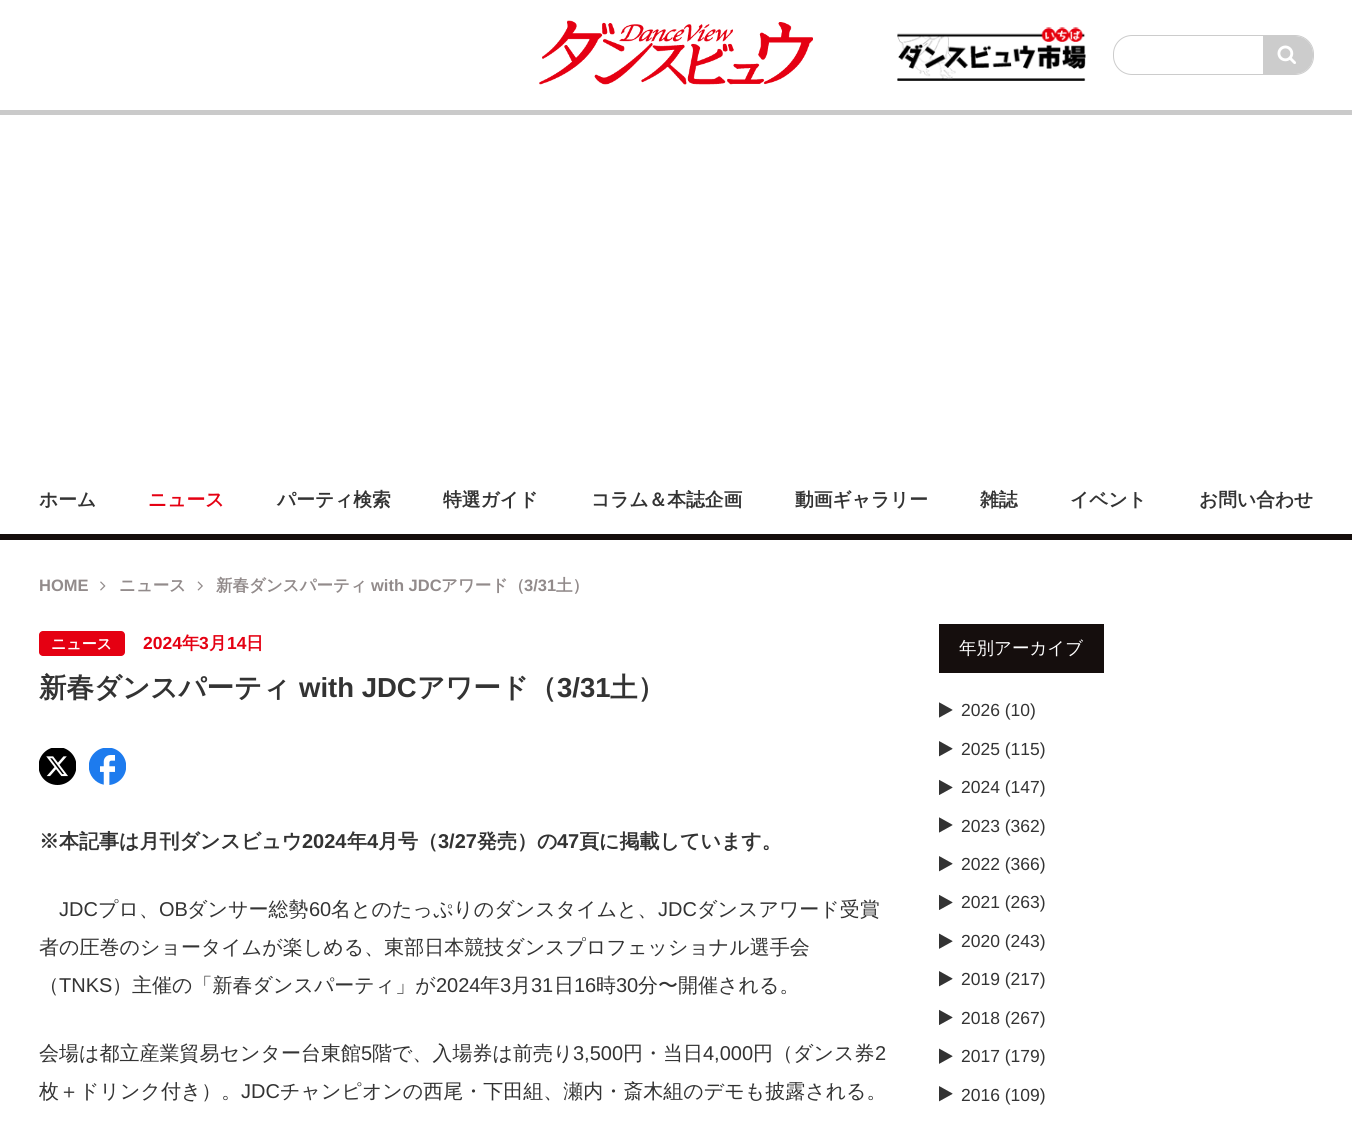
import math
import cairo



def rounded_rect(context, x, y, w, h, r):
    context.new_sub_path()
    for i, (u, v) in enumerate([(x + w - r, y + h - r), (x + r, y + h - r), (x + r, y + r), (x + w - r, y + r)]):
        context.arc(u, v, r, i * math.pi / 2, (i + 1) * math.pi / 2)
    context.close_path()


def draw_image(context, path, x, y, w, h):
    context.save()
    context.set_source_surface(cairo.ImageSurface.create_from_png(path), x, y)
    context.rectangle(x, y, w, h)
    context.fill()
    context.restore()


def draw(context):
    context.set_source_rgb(1, 1, 1)
    context.paint()
    context.set_source_rgb(202 / 255, 202 / 255, 202 / 255)
    context.rectangle(0, 110, 1352, 5)
    context.fill()
    draw_image(context, "images/1.png", 539, 20, 274, 65)
    draw_image(context, "images/2.png", 897, 27, 189, 54)
    rounded_rect(context, 1113.5, 35.5, 200, 39, 18.5)
    context.set_source_rgb(204 / 255, 204 / 255, 204 / 255)
    context.set_line_width(1)
    context.stroke()
    context.new_path()
    context.move_to(1263, 36)
    context.line_to(1295, 36)
    context.curve_to(1305, 36, 1313, 44, 1313, 54)
    context.line_to(1313, 56)
    context.curve_to(1313, 66, 1305, 74, 1295, 74)
    context.line_to(1263, 74)
    context.close_path()
    context.fill()
    draw_image(context, "images/3.png", 1277, 45, 19, 19)
    context.set_source_rgb(21 / 255, 14 / 255, 13 / 255)
    context.rectangle(0, 534, 1352, 6)
    context.fill()
    draw_image(context, "images/4.png", 100, 581, 6, 10)
    draw_image(context, "images/5.png", 197, 581, 6, 10)
    context.set_source_rgb(229 / 255, 0, 18 / 255)
    rounded_rect(context, 39, 631, 86, 25, 4)
    context.fill()
    draw_image(context, "images/6.png", 39, 748, 37, 37)
    draw_image(context, "images/7.png", 89, 748, 37, 37)
    context.set_source_rgb(21 / 255, 14 / 255, 13 / 255)
    context.rectangle(939, 624, 165, 49)
    context.fill()
    draw_image(context, "images/8.png", 939, 702, 14, 16)
    draw_image(context, "images/9.png", 939, 741, 14, 16)
    draw_image(context, "images/10.png", 939, 779, 14, 16)
    draw_image(context, "images/8.png", 939, 817, 14, 16)
    draw_image(context, "images/9.png", 939, 856, 14, 16)
    draw_image(context, "images/10.png", 939, 894, 14, 16)
    draw_image(context, "images/11.png", 939, 933, 14, 16)
    draw_image(context, "images/9.png", 939, 971, 14, 16)
    draw_image(context, "images/10.png", 939, 1009, 14, 16)
    draw_image(context, "images/11.png", 939, 1048, 14, 16)
    draw_image(context, "images/9.png", 939, 1086, 14, 16)
    context.select_font_face("WenQuanYi Zen Hei", cairo.FontSlant.NORMAL, cairo.FontWeight.BOLD)
    context.set_font_size(18.75)
    context.set_source_rgb(51 / 255, 51 / 255, 51 / 255)
    context.move_to(39, 506)
    context.show_text("ホーム")
    context.set_source_rgb(229 / 255, 0, 18 / 255)
    context.move_to(148, 506)
    context.show_text("ニュース")
    context.set_source_rgb(51 / 255, 51 / 255, 51 / 255)
    context.move_to(277, 506)
    context.show_text("パーティ検索")
    context.move_to(443, 506)
    context.show_text("特選ガイド")
    context.move_to(591, 506)
    context.show_text("コラム＆本誌企画")
    context.move_to(795, 506)
    context.show_text("動画ギャラリー")
    context.move_to(980, 506)
    context.show_text("雑誌")
    context.move_to(1070, 506)
    context.show_text("イベント")
    context.move_to(1199, 506)
    context.show_text("お問い合わせ")
    context.select_font_face("Liberation Sans", cairo.FontSlant.NORMAL, cairo.FontWeight.BOLD)
    context.set_font_size(16.5)
    context.set_source_rgb(146 / 255, 139 / 255, 139 / 255)
    context.move_to(39, 591)
    context.show_text("HOME")
    context.select_font_face("WenQuanYi Zen Hei", cairo.FontSlant.NORMAL, cairo.FontWeight.BOLD)
    context.move_to(119, 591)
    context.show_text("ニュース")
    context.move_to(216, 591)
    context.show_text("新春ダンスパーティ")
    context.select_font_face("Liberation Sans", cairo.FontSlant.NORMAL, cairo.FontWeight.BOLD)
    context.move_to(371, 591)
    context.show_text("with JDC")
    context.select_font_face("WenQuanYi Zen Hei", cairo.FontSlant.NORMAL, cairo.FontWeight.BOLD)
    context.move_to(441, 591)
    context.show_text("アワード（")
    context.select_font_face("Liberation Sans", cairo.FontSlant.NORMAL, cairo.FontWeight.BOLD)
    context.move_to(524, 591)
    context.show_text("3/31")
    context.select_font_face("WenQuanYi Zen Hei", cairo.FontSlant.NORMAL, cairo.FontWeight.BOLD)
    context.move_to(556, 591)
    context.show_text("土）")
    context.set_font_size(15)
    context.set_source_rgb(1, 1, 1)
    context.move_to(51, 649)
    context.show_text("ニュース")
    context.select_font_face("Liberation Sans", cairo.FontSlant.NORMAL, cairo.FontWeight.BOLD)
    context.set_font_size(17.5)
    context.set_source_rgb(229 / 255, 0, 18 / 255)
    context.move_to(143, 649)
    context.show_text("2024")
    context.select_font_face("WenQuanYi Zen Hei", cairo.FontSlant.NORMAL, cairo.FontWeight.BOLD)
    context.move_to(182, 649)
    context.show_text("年")
    context.select_font_face("Liberation Sans", cairo.FontSlant.NORMAL, cairo.FontWeight.BOLD)
    context.move_to(199, 649)
    context.show_text("3")
    context.select_font_face("WenQuanYi Zen Hei", cairo.FontSlant.NORMAL, cairo.FontWeight.BOLD)
    context.move_to(209, 649)
    context.show_text("月")
    context.select_font_face("Liberation Sans", cairo.FontSlant.NORMAL, cairo.FontWeight.BOLD)
    context.move_to(227, 649)
    context.show_text("14")
    context.select_font_face("WenQuanYi Zen Hei", cairo.FontSlant.NORMAL, cairo.FontWeight.BOLD)
    context.move_to(246, 649)
    context.show_text("日")
    context.set_font_size(27.5)
    context.set_source_rgb(51 / 255, 51 / 255, 51 / 255)
    context.move_to(39, 697)
    context.show_text("新春ダンスパーティ")
    context.select_font_face("Liberation Sans", cairo.FontSlant.NORMAL, cairo.FontWeight.BOLD)
    context.move_to(299, 697)
    context.show_text("with JDC")
    context.select_font_face("WenQuanYi Zen Hei", cairo.FontSlant.NORMAL, cairo.FontWeight.BOLD)
    context.move_to(417, 697)
    context.show_text("アワード（")
    context.select_font_face("Liberation Sans", cairo.FontSlant.NORMAL, cairo.FontWeight.BOLD)
    context.move_to(557, 697)
    context.show_text("3/31")
    context.select_font_face("WenQuanYi Zen Hei", cairo.FontSlant.NORMAL, cairo.FontWeight.BOLD)
    context.move_to(610, 697)
    context.show_text("土）")
    context.set_font_size(20)
    context.move_to(39, 848)
    context.show_text("※本記事は月刊ダンスビュウ")
    context.select_font_face("Liberation Sans", cairo.FontSlant.NORMAL, cairo.FontWeight.BOLD)
    context.move_to(302, 848)
    context.show_text("2024")
    context.select_font_face("WenQuanYi Zen Hei", cairo.FontSlant.NORMAL, cairo.FontWeight.BOLD)
    context.move_to(347, 848)
    context.show_text("年")
    context.select_font_face("Liberation Sans", cairo.FontSlant.NORMAL, cairo.FontWeight.BOLD)
    context.move_to(367, 848)
    context.show_text("4")
    context.select_font_face("WenQuanYi Zen Hei", cairo.FontSlant.NORMAL, cairo.FontWeight.BOLD)
    context.move_to(378, 848)
    context.show_text("月号（")
    context.select_font_face("Liberation Sans", cairo.FontSlant.NORMAL, cairo.FontWeight.BOLD)
    context.move_to(438, 848)
    context.show_text("3/27")
    context.select_font_face("WenQuanYi Zen Hei", cairo.FontSlant.NORMAL, cairo.FontWeight.BOLD)
    context.move_to(477, 848)
    context.show_text("発売）の")
    context.select_font_face("Liberation Sans", cairo.FontSlant.NORMAL, cairo.FontWeight.BOLD)
    context.move_to(557, 848)
    context.show_text("47")
    context.select_font_face("WenQuanYi Zen Hei", cairo.FontSlant.NORMAL, cairo.FontWeight.BOLD)
    context.move_to(579, 848)
    context.show_text("頁に掲載しています。")
    context.select_font_face("Liberation Sans")
    context.move_to(59, 916)
    context.show_text("JDC")
    context.select_font_face("WenQuanYi Zen Hei Medium")
    context.move_to(98, 916)
    context.show_text("プロ、")
    context.select_font_face("Liberation Sans")
    context.move_to(159, 916)
    context.show_text("OB")
    context.select_font_face("WenQuanYi Zen Hei Medium")
    context.move_to(187, 916)
    context.show_text("ダンサー総勢")
    context.select_font_face("Liberation Sans")
    context.move_to(309, 916)
    context.show_text("60")
    context.select_font_face("WenQuanYi Zen Hei Medium")
    context.move_to(331, 916)
    context.show_text("名とのたっぷりのダンスタイムと、")
    context.select_font_face("Liberation Sans")
    context.move_to(658, 916)
    context.show_text("JDC")
    context.select_font_face("WenQuanYi Zen Hei Medium")
    context.move_to(697, 916)
    context.show_text("ダンスアワード受賞")
    context.move_to(39, 954)
    context.show_text("者の圧巻のショータイムが楽しめる、東部日本競技ダンスプロフェッショナル選手会")
    context.move_to(39, 992)
    context.show_text("（")
    context.select_font_face("Liberation Sans")
    context.move_to(59, 992)
    context.show_text("TNKS")
    context.select_font_face("WenQuanYi Zen Hei Medium")
    context.move_to(112, 992)
    context.show_text("）主催の「新春ダンスパーティ」が")
    context.select_font_face("Liberation Sans")
    context.move_to(436, 992)
    context.show_text("2024")
    context.select_font_face("WenQuanYi Zen Hei Medium")
    context.move_to(480, 992)
    context.show_text("年")
    context.select_font_face("Liberation Sans")
    context.move_to(500, 992)
    context.show_text("3")
    context.select_font_face("WenQuanYi Zen Hei Medium")
    context.move_to(511, 992)
    context.show_text("月")
    context.select_font_face("Liberation Sans")
    context.move_to(531, 992)
    context.show_text("31")
    context.select_font_face("WenQuanYi Zen Hei Medium")
    context.move_to(554, 992)
    context.show_text("日")
    context.select_font_face("Liberation Sans")
    context.move_to(574, 992)
    context.show_text("16")
    context.select_font_face("WenQuanYi Zen Hei Medium")
    context.move_to(596, 992)
    context.show_text("時")
    context.select_font_face("Liberation Sans")
    context.move_to(616, 992)
    context.show_text("30")
    context.select_font_face("WenQuanYi Zen Hei Medium")
    context.move_to(638, 992)
    context.show_text("分〜開催される。")
    context.move_to(39, 1060)
    context.show_text("会場は都立産業貿易センター台東館")
    context.select_font_face("Liberation Sans")
    context.move_to(361, 1060)
    context.show_text("5")
    context.select_font_face("WenQuanYi Zen Hei Medium")
    context.move_to(372, 1060)
    context.show_text("階で、入場券は前売り")
    context.select_font_face("Liberation Sans")
    context.move_to(573, 1060)
    context.show_text("3,500")
    context.select_font_face("WenQuanYi Zen Hei Medium")
    context.move_to(623, 1060)
    context.show_text("円・当日")
    context.select_font_face("Liberation Sans")
    context.move_to(703, 1060)
    context.show_text("4,000")
    context.select_font_face("WenQuanYi Zen Hei Medium")
    context.move_to(753, 1060)
    context.show_text("円（ダンス券")
    context.select_font_face("Liberation Sans")
    context.move_to(875, 1060)
    context.show_text("2")
    context.select_font_face("WenQuanYi Zen Hei Medium")
    context.move_to(39, 1098)
    context.show_text("枚＋ドリンク付き）。")
    context.select_font_face("Liberation Sans")
    context.move_to(241, 1098)
    context.show_text("JDC")
    context.select_font_face("WenQuanYi Zen Hei Medium")
    context.move_to(280, 1098)
    context.show_text("チャンピオンの西尾・下田組、瀬内・斎木組のデモも披露される。")
    context.set_font_size(17.5)
    context.set_source_rgb(1, 1, 1)
    context.move_to(959, 654)
    context.show_text("年別アーカイブ")
    context.select_font_face("Liberation Sans")
    context.set_source_rgb(51 / 255, 51 / 255, 51 / 255)
    context.move_to(961, 716)
    context.show_text("2026 (10)")
    context.move_to(961, 755)
    context.show_text("2025 (115)")
    context.move_to(961, 793)
    context.show_text("2024 (147)")
    context.move_to(961, 832)
    context.show_text("2023 (362)")
    context.move_to(961, 870)
    context.show_text("2022 (366)")
    context.move_to(961, 908)
    context.show_text("2021 (263)")
    context.move_to(961, 947)
    context.show_text("2020 (243)")
    context.move_to(961, 985)
    context.show_text("2019 (217)")
    context.move_to(961, 1024)
    context.show_text("2018 (267)")
    context.move_to(961, 1062)
    context.show_text("2017 (179)")
    context.move_to(961, 1101)
    context.show_text("2016 (109)")


surface = cairo.ImageSurface(cairo.Format.RGB24, 1352, 1142)
context = cairo.Context(surface)
options = cairo.FontOptions()
options.set_hint_metrics(cairo.HintMetrics.OFF)
options.set_hint_style(cairo.HintStyle.NONE)
context.set_font_options(options)
context.set_miter_limit(4)
draw(context)
surface.write_to_png("out.png")
